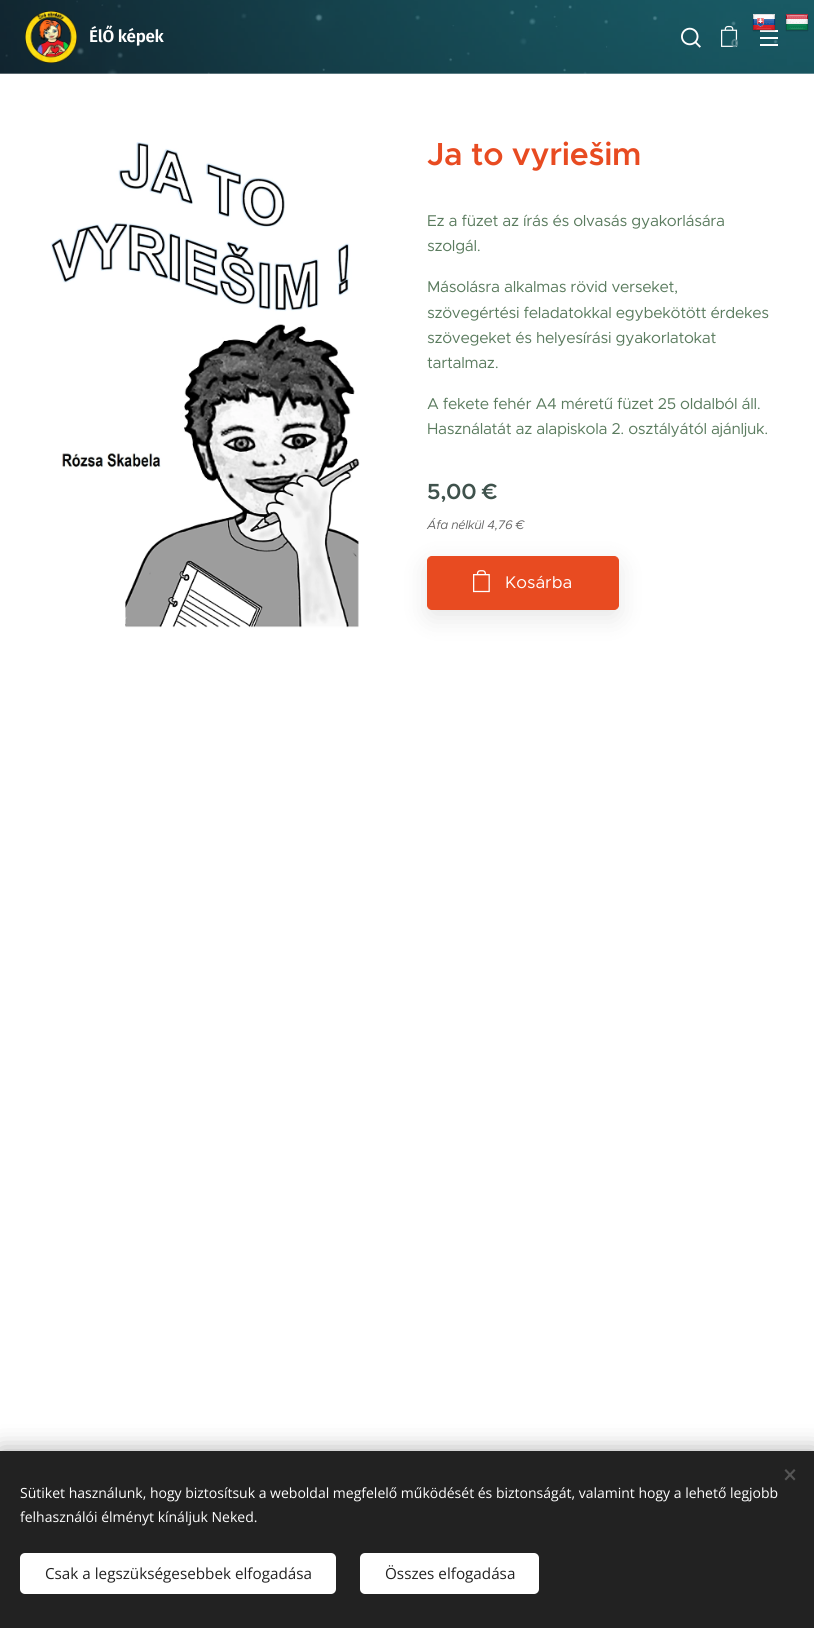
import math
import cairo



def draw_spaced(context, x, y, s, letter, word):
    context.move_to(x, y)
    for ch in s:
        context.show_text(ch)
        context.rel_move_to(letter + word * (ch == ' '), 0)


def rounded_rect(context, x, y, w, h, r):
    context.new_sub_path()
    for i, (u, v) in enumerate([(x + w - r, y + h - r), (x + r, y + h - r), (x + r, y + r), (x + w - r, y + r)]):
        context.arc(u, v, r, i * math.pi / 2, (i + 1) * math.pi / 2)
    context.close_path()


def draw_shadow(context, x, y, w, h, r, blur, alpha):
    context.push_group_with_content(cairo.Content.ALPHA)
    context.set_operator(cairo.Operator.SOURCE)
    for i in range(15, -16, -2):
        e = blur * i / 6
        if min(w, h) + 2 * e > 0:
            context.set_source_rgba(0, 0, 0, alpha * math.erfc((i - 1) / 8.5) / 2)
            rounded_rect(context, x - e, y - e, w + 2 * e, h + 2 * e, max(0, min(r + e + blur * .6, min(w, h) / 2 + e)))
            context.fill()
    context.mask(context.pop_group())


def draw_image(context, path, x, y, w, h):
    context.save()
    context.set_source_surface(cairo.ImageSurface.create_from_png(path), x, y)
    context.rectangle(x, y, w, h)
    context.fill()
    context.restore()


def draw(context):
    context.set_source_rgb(1, 1, 1)
    context.paint()
    draw_image(context, "images/3.png", 0, 0, 814, 74)
    context.set_source_rgb(1, 1, 1)
    context.rectangle(760, 30, 18, 2)
    context.fill()
    draw_image(context, "images/1.png", 752, 14, 24, 18)
    draw_image(context, "images/2.png", 785, 14, 24, 18)
    draw_image(context, "images/4.png", 25, 11, 52, 52)
    draw_image(context, "images/5.png", 681, 27, 20, 21)
    draw_image(context, "images/6.png", 721, 25, 17, 22)
    context.rectangle(760, 37, 18, 2)
    context.fill()
    context.rectangle(760, 44, 18, 2)
    context.fill()
    context.set_source_rgba(1, 1, 1, 0.3)
    context.rectangle(0, 73, 814, 1)
    context.fill()
    draw_image(context, "images/7.png", 51, 142, 309, 486)
    context.set_source_rgb(0, 0, 0)
    draw_shadow(context, 427, 564, 192, 54, 5, 12.5, 0.1)
    context.set_source_rgb(232 / 255, 75 / 255, 33 / 255)
    rounded_rect(context, 427.5, 556.5, 191, 53, 4.5)
    context.fill_preserve()
    context.set_line_width(1)
    context.stroke()
    draw_image(context, "images/8.png", 473, 570, 17, 23)
    context.set_source_rgb(0, 0, 0)
    draw_shadow(context, 0, 1451, 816, 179, 0, 12.5, 0.33)
    context.set_source_rgb(34 / 255, 34 / 255, 34 / 255)
    context.rectangle(0, 1451, 814, 177)
    context.fill()
    context.set_source_rgb(85 / 255, 85 / 255, 85 / 255)
    context.new_path()
    context.move_to(784.5, 1479)
    context.line_to(794, 1469)
    context.line_to(795.5, 1470.5)
    context.line_to(786, 1480.5)
    context.close_path()
    context.fill()
    context.new_path()
    context.move_to(786, 1469)
    context.line_to(795.5, 1479)
    context.line_to(794, 1480.5)
    context.line_to(784.5, 1470.5)
    context.close_path()
    context.fill()
    context.set_source_rgb(1, 1, 1)
    rounded_rect(context, 20, 1553, 316, 41, 5)
    context.fill()
    rounded_rect(context, 360, 1553, 179, 41, 5)
    context.fill()
    context.select_font_face("Fira Sans SemiBold")
    context.set_font_size(17)
    draw_spaced(context, 89, 42, "ÉlŐ képek", -0.3, 0)
    context.select_font_face("Montserrat", cairo.FontSlant.NORMAL, cairo.FontWeight.BOLD)
    context.set_font_size(11)
    context.set_source_rgb(89 / 255, 133 / 255, 141 / 255)
    context.move_to(731, 47)
    context.show_text("0")
    context.select_font_face("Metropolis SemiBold")
    context.set_font_size(32)
    context.set_source_rgb(232 / 255, 75 / 255, 33 / 255)
    draw_spaced(context, 427, 165, "Ja to vyriešim", -0.3, 0)
    context.select_font_face("Metropolis")
    context.set_font_size(15.7)
    context.set_source_rgb(90 / 255, 123 / 255, 94 / 255)
    draw_spaced(context, 427, 226, "Ez a füzet az írás és olvasás gyakorlására", -0.3, 0)
    draw_spaced(context, 427, 251, "szolgál.", -0.3, 0)
    draw_spaced(context, 427, 292, "Másolásra alkalmas rövid verseket,", -0.3, 0)
    draw_spaced(context, 427, 318, "szövegértési feladatokkal egybekötött érdekes", -0.3, 0)
    draw_spaced(context, 427, 343, "szövegeket és helyesírási gyakorlatokat", -0.3, 0)
    draw_spaced(context, 427, 368, "tartalmaz.", -0.3, 0)
    draw_spaced(context, 427, 409, "A fekete fehér A4 méretű füzet 25 oldalból áll.", -0.3, 0)
    draw_spaced(context, 427, 434, "Használatát az alapiskola 2. osztályától ajánljuk.", -0.3, 0)
    context.select_font_face("Metropolis SemiBold")
    context.set_font_size(22)
    context.set_source_rgb(63 / 255, 82 / 255, 76 / 255)
    draw_spaced(context, 427, 499, "5,00 €", -0.3, 0)
    context.select_font_face("Metropolis", cairo.FontSlant.ITALIC)
    context.set_font_size(12.5)
    context.set_source_rgb(102 / 255, 102 / 255, 102 / 255)
    draw_spaced(context, 427, 529, "Áfa nélkül 4,76 €", -0.3, 0)
    context.select_font_face("Metropolis")
    context.set_font_size(17)
    context.set_source_rgb(1, 1, 1)
    context.move_to(505, 588)
    context.show_text("Kosárba")
    context.select_font_face("Open Sans")
    context.set_font_size(14)
    context.move_to(20, 1498)
    context.show_text("Sütiket használunk, hogy biztosítsuk a weboldal megfelelő működését és biztonságát, valamint hogy a lehető legjobb")
    context.move_to(20, 1522)
    context.show_text("felhasználói élményt kínáljuk Neked.")
    context.set_font_size(15.25)
    context.set_source_rgb(34 / 255, 34 / 255, 34 / 255)
    context.move_to(45, 1579)
    context.show_text("Csak a legszükségesebbek elfogadása")
    context.move_to(385, 1579)
    context.show_text("Összes elfogadása")


surface = cairo.ImageSurface(cairo.Format.RGB24, 814, 1628)
context = cairo.Context(surface)
options = cairo.FontOptions()
options.set_hint_metrics(cairo.HintMetrics.OFF)
options.set_hint_style(cairo.HintStyle.NONE)
context.set_font_options(options)
context.set_miter_limit(4)
draw(context)
surface.write_to_png("out.png")
